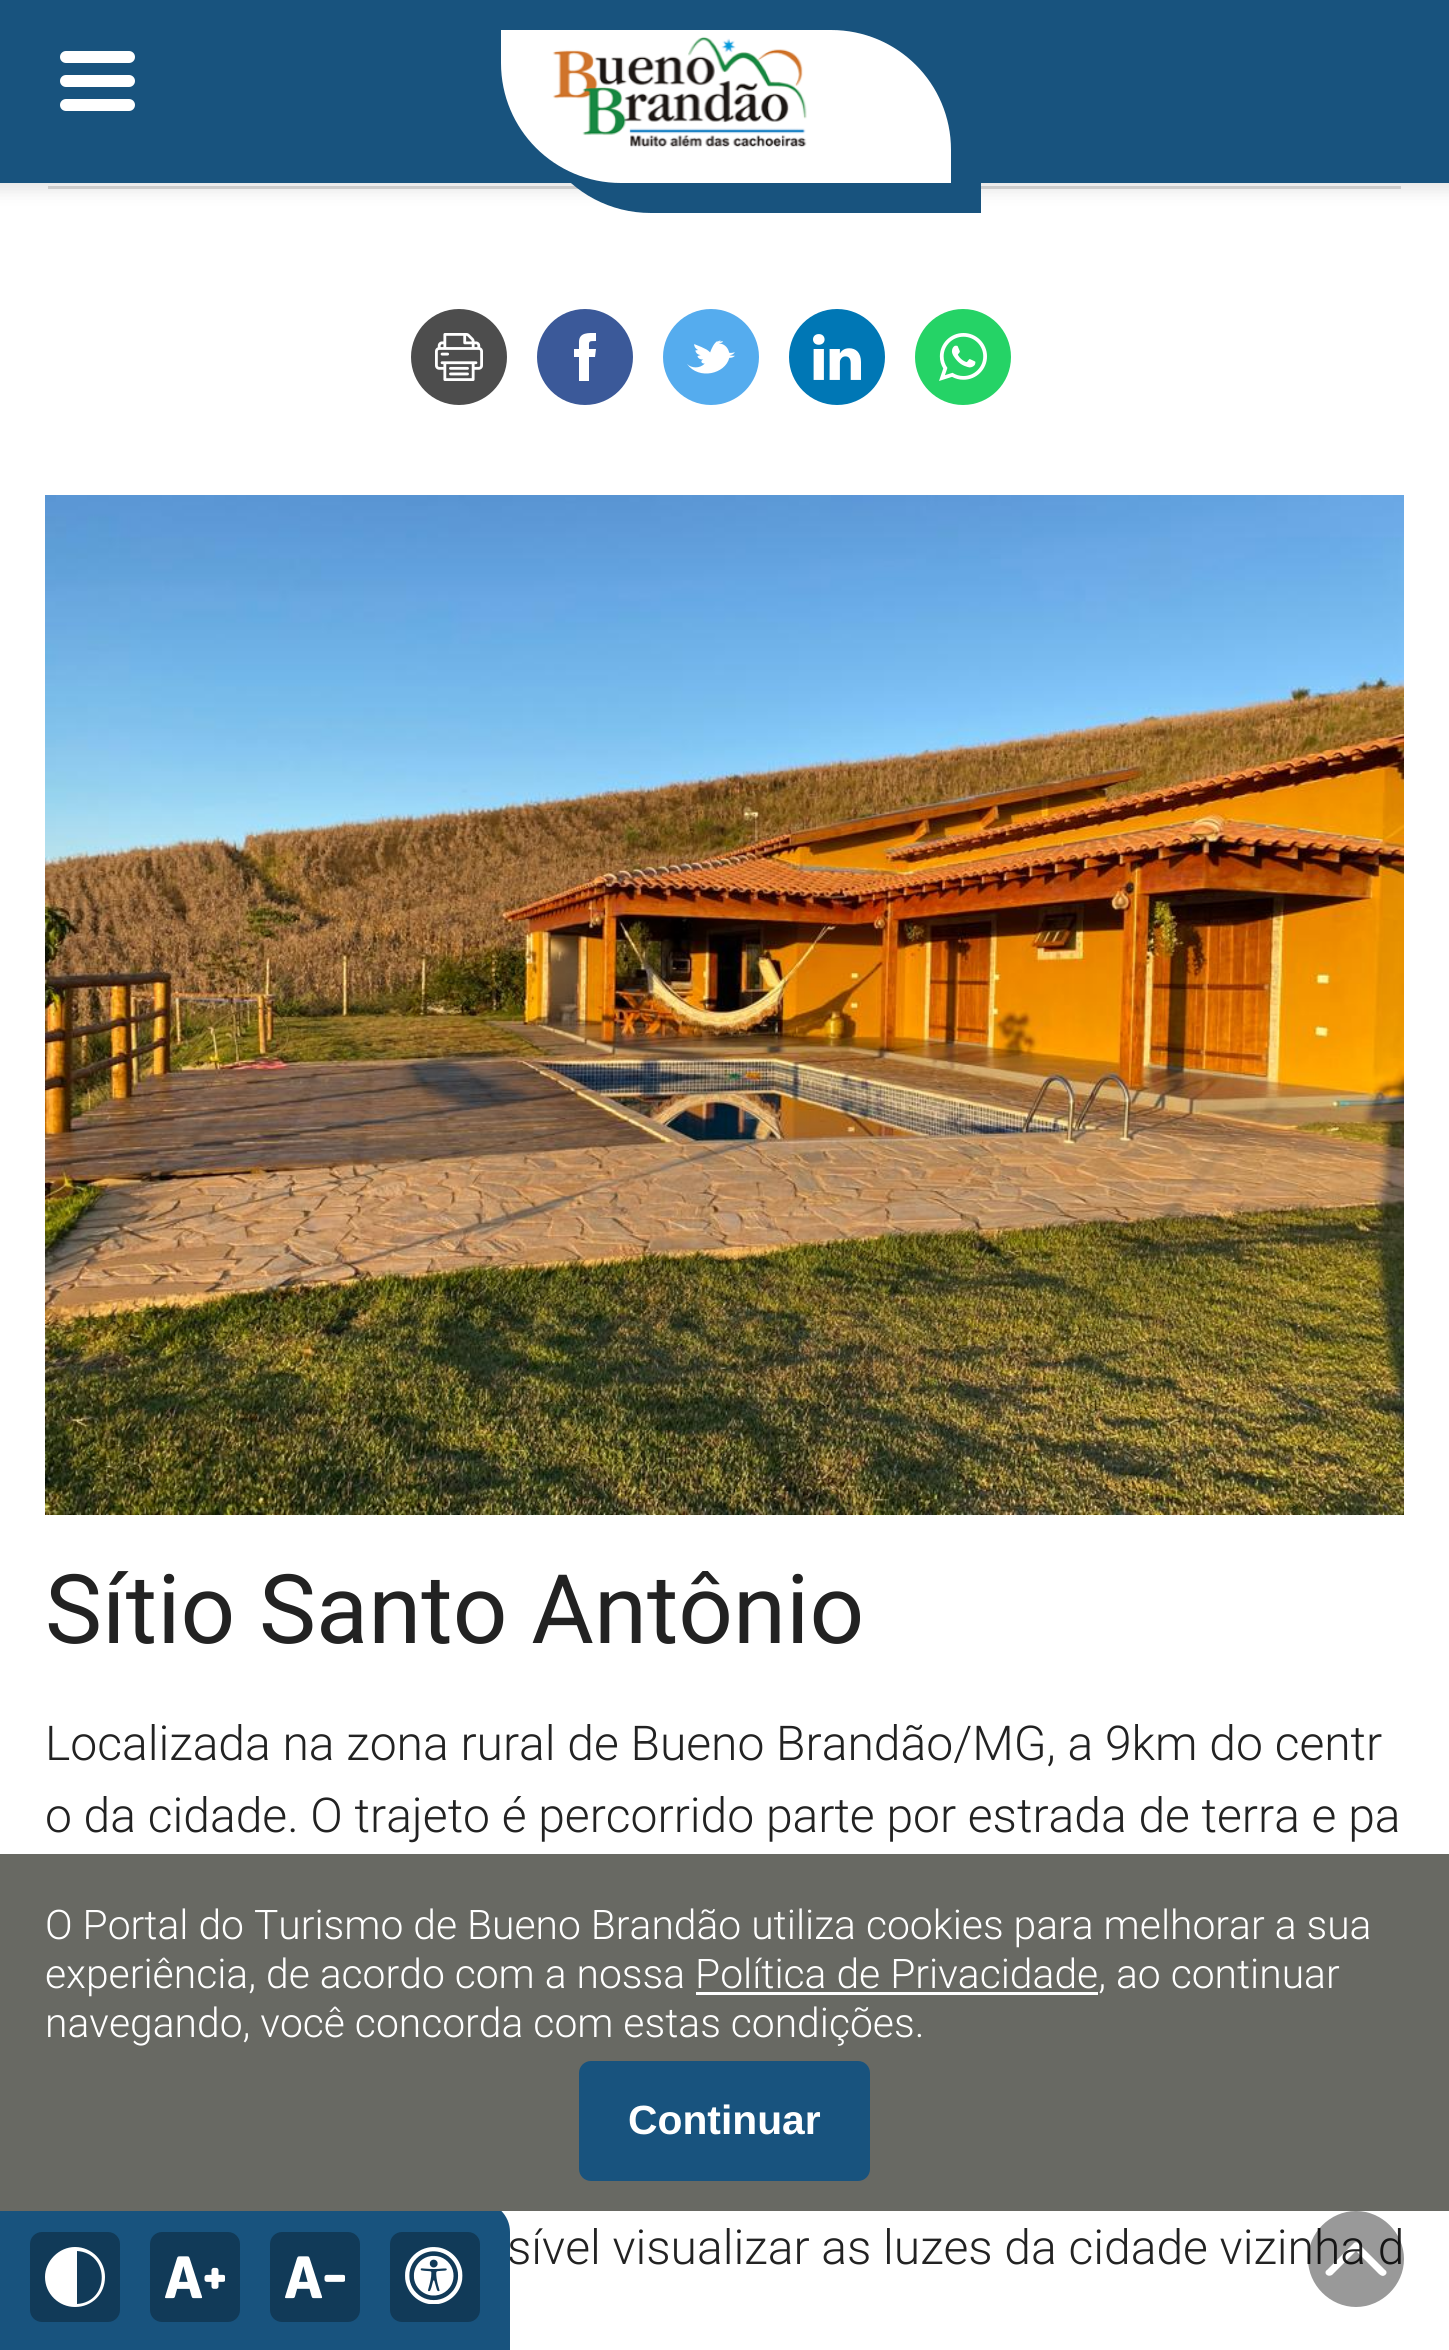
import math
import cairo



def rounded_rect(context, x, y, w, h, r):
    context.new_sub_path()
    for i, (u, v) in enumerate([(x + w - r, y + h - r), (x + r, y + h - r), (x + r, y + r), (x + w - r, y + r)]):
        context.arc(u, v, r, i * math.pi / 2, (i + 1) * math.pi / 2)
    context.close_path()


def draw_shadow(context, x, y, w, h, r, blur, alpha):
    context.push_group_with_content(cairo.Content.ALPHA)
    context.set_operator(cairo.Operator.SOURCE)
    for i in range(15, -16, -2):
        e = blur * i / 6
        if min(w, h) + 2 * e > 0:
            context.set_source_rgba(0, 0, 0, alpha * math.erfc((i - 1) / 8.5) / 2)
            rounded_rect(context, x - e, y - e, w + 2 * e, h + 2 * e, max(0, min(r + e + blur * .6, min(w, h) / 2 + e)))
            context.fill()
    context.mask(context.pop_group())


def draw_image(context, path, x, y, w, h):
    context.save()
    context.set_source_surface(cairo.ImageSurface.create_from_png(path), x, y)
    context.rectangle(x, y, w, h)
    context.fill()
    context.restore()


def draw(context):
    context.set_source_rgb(1, 1, 1)
    context.paint()
    context.set_source_rgb(214 / 255, 214 / 255, 214 / 255)
    context.rectangle(48, 186, 1353, 3)
    context.fill()
    context.set_source_rgb(153 / 255, 153 / 255, 153 / 255)
    draw_shadow(context, -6, -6, 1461, 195, 0, 9, 0.29)
    context.set_source_rgb(24 / 255, 83 / 255, 126 / 255)
    context.rectangle(0, 0, 1449, 183)
    context.fill()
    context.set_source_rgb(1, 1, 1)
    rounded_rect(context, 60, 51, 75, 12, 6)
    context.fill()
    rounded_rect(context, 60, 75, 75, 12, 6)
    context.fill()
    rounded_rect(context, 60, 99, 75, 12, 6)
    context.fill()
    context.set_source_rgb(24 / 255, 83 / 255, 126 / 255)
    context.new_path()
    context.move_to(552, 162)
    context.curve_to(574, 193, 610, 213, 651, 213)
    context.line_to(981, 213)
    context.line_to(981, 180)
    context.curve_to(981, 139, 961, 103, 930, 81)
    context.curve_to(943, 101, 951, 125, 951, 150)
    context.line_to(951, 183)
    context.line_to(621, 183)
    context.curve_to(596, 183, 572, 175, 552, 162)
    context.close_path()
    context.fill()
    context.set_source_rgb(1, 1, 1)
    context.new_path()
    context.move_to(501, 30)
    context.line_to(831, 30)
    context.curve_to(897.5, 30, 951, 83.5, 951, 150)
    context.line_to(951, 183)
    context.line_to(621, 183)
    context.curve_to(554.5, 183, 501, 129.5, 501, 63)
    context.close_path()
    context.fill()
    draw_image(context, "images/1.png", 552, 36, 255, 112)
    context.set_source_rgb(77 / 255, 77 / 255, 77 / 255)
    context.arc(459, 357, 48, 0, 2 * math.pi)
    context.fill()
    draw_image(context, "images/2.png", 435, 333, 48, 48)
    context.set_source_rgb(59 / 255, 89 / 255, 153 / 255)
    context.arc(585, 357, 48, 0, 2 * math.pi)
    context.fill()
    context.set_source_rgb(1, 1, 1)
    context.new_path()
    context.move_to(579, 342)
    context.line_to(579, 349)
    context.line_to(574, 349)
    context.line_to(574, 357)
    context.line_to(579, 357)
    context.line_to(579, 381)
    context.line_to(589, 381)
    context.line_to(589, 357)
    context.line_to(595, 357)
    context.line_to(596, 349)
    context.line_to(589, 349)
    context.curve_to(589, 341, 588, 341, 596, 341)
    context.line_to(596, 333)
    context.curve_to(589, 333, 579, 332, 579, 342)
    context.close_path()
    context.fill()
    context.set_source_rgb(85 / 255, 172 / 255, 238 / 255)
    context.arc(711, 357, 48, 0, 2 * math.pi)
    context.fill()
    draw_image(context, "images/3.png", 687, 340, 48, 34)
    context.set_source_rgb(0, 119 / 255, 181 / 255)
    context.arc(837, 357, 48, 0, 2 * math.pi)
    context.fill()
    draw_image(context, "images/4.png", 813, 334, 48, 46)
    context.set_source_rgb(37 / 255, 211 / 255, 102 / 255)
    context.arc(963, 357, 48, 0, 2 * math.pi)
    context.fill()
    draw_image(context, "images/5.png", 939, 333, 48, 48)
    draw_image(context, "images/6.png", 45, 495, 1359, 1020)
    context.select_font_face("Roboto")
    context.set_font_size(96)
    context.set_source_rgb(34 / 255, 34 / 255, 34 / 255)
    context.move_to(45, 1643)
    context.show_text("Sítio Santo Antônio")
    context.select_font_face("Roboto Light")
    context.set_font_size(48)
    context.move_to(45, 1760)
    context.show_text("Localizada na zona rural de Bueno Brandão/MG, a 9km do centr")
    context.move_to(45, 1832)
    context.show_text("o da cidade. O trajeto é percorrido parte por estrada de terra e pa")
    context.move_to(507, 2264)
    context.show_text("sível visualizar as luzes da cidade vizinha d")
    context.set_source_rgb(24 / 255, 83 / 255, 126 / 255)
    context.new_path()
    context.move_to(0, 2202)
    context.line_to(480, 2202)
    context.curve_to(496.5, 2202, 510, 2215.5, 510, 2232)
    context.line_to(510, 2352)
    context.line_to(0, 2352)
    context.close_path()
    context.fill()
    context.set_source_rgb(104 / 255, 105 / 255, 99 / 255)
    context.rectangle(0, 1854, 1449, 357)
    context.fill()
    context.set_source_rgb(24 / 255, 83 / 255, 126 / 255)
    rounded_rect(context, 579, 2061, 291, 120, 12)
    context.fill()
    context.select_font_face("Liberation Sans", cairo.FontSlant.NORMAL, cairo.FontWeight.BOLD)
    context.set_font_size(40.8)
    context.set_source_rgb(1, 1, 1)
    context.move_to(628, 2134)
    context.show_text("Continuar")
    context.select_font_face("Roboto Light")
    context.move_to(45, 2037)
    context.show_text("navegando, você concorda com estas condições.")
    context.rectangle(696, 1992, 402, 3)
    context.fill()
    context.move_to(45, 1988)
    context.show_text("experiência, de acordo com a nossa Política de Privacidade, ao continuar")
    context.move_to(45, 1939)
    context.show_text("O Portal do Turismo de Bueno Brandão utiliza cookies para melhorar a sua")
    context.set_source_rgb(17 / 255, 58 / 255, 88 / 255)
    rounded_rect(context, 30, 2232, 90, 90, 12)
    context.fill()
    context.set_source_rgb(1, 1, 1)
    context.new_path()
    context.move_to(75, 2247)
    context.curve_to(59, 2247, 45, 2261, 45, 2277)
    context.curve_to(45, 2294, 59, 2307, 75, 2307)
    context.curve_to(92, 2307, 105, 2294, 105, 2277)
    context.curve_to(105, 2261, 92, 2247, 75, 2247)
    context.close_path()
    context.move_to(77, 2304)
    context.line_to(77, 2251)
    context.curve_to(110, 2253, 110, 2302, 77, 2304)
    context.close_path()
    context.fill()
    context.set_source_rgb(17 / 255, 58 / 255, 88 / 255)
    rounded_rect(context, 150, 2232, 90, 90, 12)
    context.fill()
    draw_image(context, "images/7.png", 165, 2256, 60, 43)
    rounded_rect(context, 270, 2232, 90, 90, 12)
    context.fill()
    draw_image(context, "images/8.png", 285, 2256, 60, 43)
    rounded_rect(context, 390, 2232, 90, 90, 12)
    context.fill()
    draw_image(context, "images/9.png", 405, 2247, 58, 57)
    context.set_source_rgba(0, 0, 0, 0.4)
    context.new_path()
    context.move_to(1356, 2211)
    context.curve_to(1330, 2211, 1308, 2233, 1308, 2259)
    context.curve_to(1308, 2285, 1330, 2307, 1356, 2307)
    context.curve_to(1382, 2307, 1404, 2285, 1404, 2259)
    context.curve_to(1404, 2233, 1382, 2211, 1356, 2211)
    context.close_path()
    context.move_to(1385, 2275)
    context.curve_to(1382, 2278, 1378, 2273, 1376, 2271)
    context.line_to(1356, 2251)
    context.line_to(1332, 2275)
    context.curve_to(1330, 2276, 1328, 2276, 1327, 2275)
    context.curve_to(1325, 2274, 1325, 2271, 1327, 2270)
    context.line_to(1354, 2243)
    context.curve_to(1355, 2242, 1357, 2242, 1358, 2243)
    context.line_to(1385, 2270)
    context.curve_to(1387, 2271, 1387, 2274, 1385, 2275)
    context.close_path()
    context.fill()


surface = cairo.ImageSurface(cairo.Format.RGB24, 1449, 2350)
context = cairo.Context(surface)
options = cairo.FontOptions()
options.set_hint_metrics(cairo.HintMetrics.OFF)
options.set_hint_style(cairo.HintStyle.NONE)
context.set_font_options(options)
context.set_miter_limit(4)
draw(context)
surface.write_to_png("out.png")
